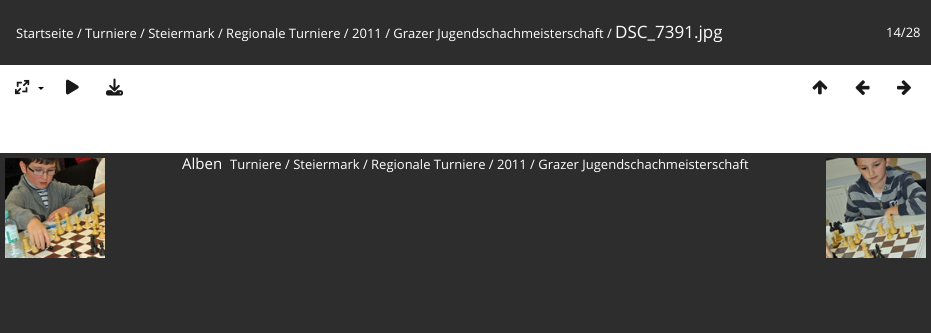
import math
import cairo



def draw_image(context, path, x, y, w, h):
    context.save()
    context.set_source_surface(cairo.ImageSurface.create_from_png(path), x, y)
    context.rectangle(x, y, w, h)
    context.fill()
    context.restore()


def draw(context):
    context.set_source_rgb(1, 1, 1)
    context.paint()
    context.set_source_rgb(45 / 255, 45 / 255, 45 / 255)
    context.rectangle(0, 0, 931, 65)
    context.fill()
    draw_image(context, "images/1.png", 15, 79, 15, 16)
    context.set_source_rgb(0, 0, 0)
    context.new_path()
    context.move_to(38, 87)
    context.line_to(44, 87)
    context.line_to(41, 90)
    context.close_path()
    context.fill()
    draw_image(context, "images/2.png", 66, 79, 13, 16)
    draw_image(context, "images/3.png", 106, 78, 17, 18)
    draw_image(context, "images/4.png", 812, 80, 16, 15)
    draw_image(context, "images/5.png", 855, 80, 15, 15)
    draw_image(context, "images/6.png", 897, 80, 14, 15)
    context.set_source_rgb(45 / 255, 45 / 255, 45 / 255)
    context.rectangle(0, 153, 931, 180)
    context.fill()
    draw_image(context, "images/7.png", 5, 158, 100, 100)
    draw_image(context, "images/8.png", 826, 158, 100, 100)
    context.select_font_face("Open Sans")
    context.set_font_size(13)
    context.set_source_rgb(1, 1, 1)
    context.move_to(16, 38)
    context.show_text("Startseite / Turniere / Steiermark / Regionale Turniere / 2011 / Grazer Jugendschachmeisterschaft /")
    context.set_font_size(17)
    context.move_to(615, 38)
    context.show_text("DSC_7391.jpg")
    context.set_font_size(13)
    context.move_to(886, 37)
    context.show_text("14/28")
    context.set_font_size(15)
    context.move_to(182, 169)
    context.show_text("Alben")
    context.set_font_size(13)
    context.move_to(230, 169)
    context.show_text("Turniere / Steiermark / Regionale Turniere / 2011 / Grazer Jugendschachmeisterschaft")


surface = cairo.ImageSurface(cairo.Format.RGB24, 931, 333)
context = cairo.Context(surface)
options = cairo.FontOptions()
options.set_hint_metrics(cairo.HintMetrics.OFF)
options.set_hint_style(cairo.HintStyle.NONE)
context.set_font_options(options)
context.set_miter_limit(4)
draw(context)
surface.write_to_png("out.png")
